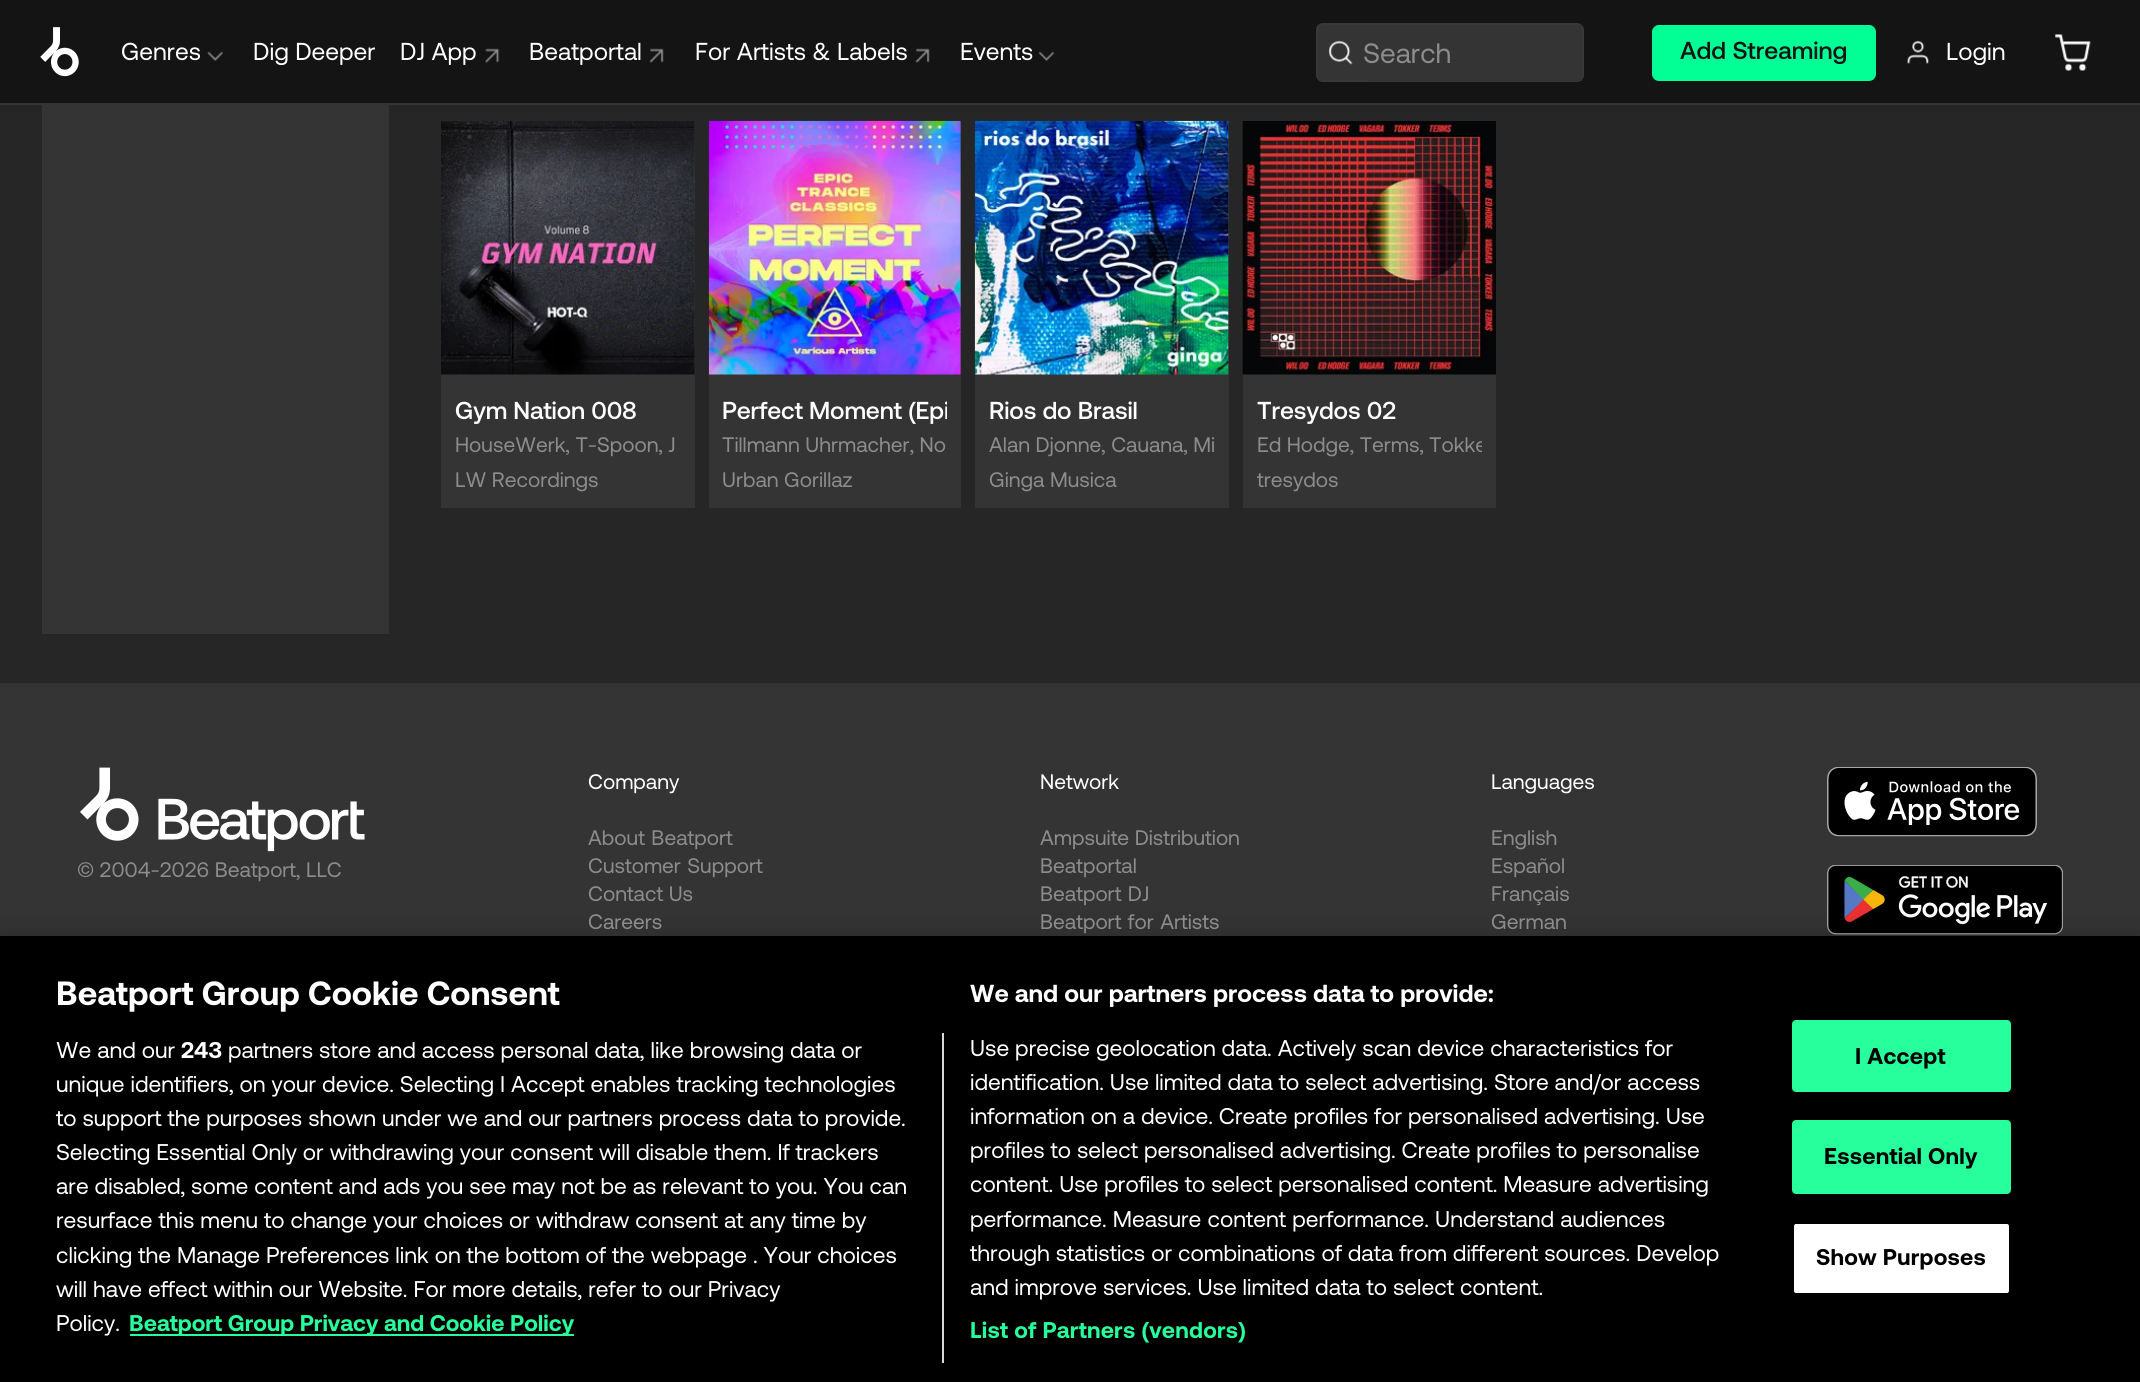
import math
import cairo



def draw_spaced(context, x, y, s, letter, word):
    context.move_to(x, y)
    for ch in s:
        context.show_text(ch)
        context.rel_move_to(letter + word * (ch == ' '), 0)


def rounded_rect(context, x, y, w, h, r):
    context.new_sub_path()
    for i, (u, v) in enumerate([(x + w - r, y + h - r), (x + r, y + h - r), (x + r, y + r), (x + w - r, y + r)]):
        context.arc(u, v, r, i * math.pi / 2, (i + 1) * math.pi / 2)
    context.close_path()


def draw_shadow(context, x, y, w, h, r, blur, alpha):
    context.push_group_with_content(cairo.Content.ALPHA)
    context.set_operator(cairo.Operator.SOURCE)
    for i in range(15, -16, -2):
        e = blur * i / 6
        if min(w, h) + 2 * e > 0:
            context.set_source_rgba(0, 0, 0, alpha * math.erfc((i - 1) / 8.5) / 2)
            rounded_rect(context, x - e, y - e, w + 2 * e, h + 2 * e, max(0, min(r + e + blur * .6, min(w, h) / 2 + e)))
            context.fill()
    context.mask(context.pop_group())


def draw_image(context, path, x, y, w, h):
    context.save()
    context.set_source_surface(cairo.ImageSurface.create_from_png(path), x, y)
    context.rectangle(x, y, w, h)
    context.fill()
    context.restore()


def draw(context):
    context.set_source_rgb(38 / 255, 38 / 255, 38 / 255)
    context.paint()
    context.set_source_rgb(20 / 255, 20 / 255, 20 / 255)
    context.rectangle(0, 0, 2140, 103)
    context.fill()
    context.set_source_rgb(51 / 255, 51 / 255, 51 / 255)
    context.rectangle(0, 103, 2140, 2)
    context.fill()
    draw_image(context, "images/1.png", 40, 27, 39, 50)
    draw_image(context, "images/2.png", 207, 51, 17, 10)
    draw_image(context, "images/3.png", 485, 48, 15, 15)
    draw_image(context, "images/4.png", 649, 48, 15, 15)
    draw_image(context, "images/4.png", 915, 48, 15, 15)
    draw_image(context, "images/5.png", 1038, 51, 17, 10)
    context.set_source_rgb(52 / 255, 52 / 255, 52 / 255)
    rounded_rect(context, 1317, 24, 266, 57, 6)
    context.fill_preserve()
    context.set_source_rgb(56 / 255, 56 / 255, 56 / 255)
    context.stroke()
    draw_image(context, "images/6.png", 1328, 40, 25, 25)
    context.set_source_rgb(52 / 255, 52 / 255, 52 / 255)
    context.rectangle(1363, 25, 219, 56)
    context.fill()
    context.set_source_rgb(1 / 255, 1, 149 / 255)
    rounded_rect(context, 1652, 25, 224, 56, 7)
    context.fill()
    draw_image(context, "images/7.png", 1907, 40, 22, 24)
    draw_image(context, "images/8.png", 2055, 34, 36, 37)
    context.set_source_rgb(52 / 255, 52 / 255, 52 / 255)
    context.rectangle(42, 105, 347, 529)
    context.fill()
    context.rectangle(441, 121, 254, 387)
    context.fill()
    draw_image(context, "images/9.png", 441, 121, 254, 254)
    context.rectangle(709, 121, 252, 387)
    context.fill()
    draw_image(context, "images/10.png", 708, 120, 253, 255)
    context.rectangle(975, 121, 254, 387)
    context.fill()
    draw_image(context, "images/11.png", 974, 120, 255, 255)
    context.rectangle(1243, 374, 253, 134)
    context.fill()
    draw_image(context, "images/12.png", 1242, 121, 254, 254)
    context.rectangle(0, 683, 2140, 253)
    context.fill()
    draw_image(context, "images/13.png", 80, 767, 285, 85)
    draw_image(context, "images/14.png", 1827, 767, 210, 70)
    draw_image(context, "images/15.png", 1827, 865, 236, 70)
    context.set_source_rgb(0, 0, 0)
    draw_shadow(context, 0, 936, 2140, 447, 0, 16, 0.2)
    context.set_source_rgb(0, 0, 0)
    context.rectangle(0, 936, 2140, 446)
    context.fill()
    context.set_source_rgb(216 / 255, 216 / 255, 216 / 255)
    context.rectangle(942, 1033, 2, 330)
    context.fill()
    context.set_source_rgb(39 / 255, 1, 156 / 255)
    context.rectangle(130, 1334, 444, 2)
    context.fill()
    rounded_rect(context, 1793, 1021, 217, 70, 3)
    context.fill_preserve()
    context.stroke()
    rounded_rect(context, 1793, 1121, 217, 72, 3)
    context.fill_preserve()
    context.stroke()
    context.set_source_rgb(1, 1, 1)
    rounded_rect(context, 1793, 1223, 217, 71, 3)
    context.fill_preserve()
    context.set_source_rgb(0, 0, 0)
    context.stroke()
    context.select_font_face("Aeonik")
    context.set_font_size(24.5)
    context.set_source_rgb(1, 1, 1)
    context.move_to(121, 60)
    context.show_text("Genres")
    context.move_to(253, 60)
    context.show_text("Dig Deeper")
    context.move_to(400, 60)
    context.show_text("DJ App")
    context.move_to(529, 60)
    context.show_text("Beatportal")
    context.move_to(695, 60)
    context.show_text("For Artists & Labels")
    context.move_to(960, 60)
    context.show_text("Events")
    context.set_font_size(28)
    context.set_source_rgb(140 / 255, 140 / 255, 140 / 255)
    context.move_to(1363, 63)
    context.show_text("Search")
    context.select_font_face("Aeonik Medium")
    context.set_font_size(24.5)
    context.set_source_rgb(20 / 255, 20 / 255, 20 / 255)
    context.move_to(1680, 59)
    context.show_text("Add Streaming")
    context.select_font_face("Aeonik")
    context.set_source_rgb(1, 1, 1)
    context.move_to(1946, 60)
    context.show_text("Login")
    context.select_font_face("Aeonik Medium")
    draw_spaced(context, 455, 419, "Gym Nation 008", -0.1, 0)
    context.select_font_face("Aeonik")
    context.set_font_size(21)
    context.set_source_rgb(140 / 255, 140 / 255, 140 / 255)
    context.move_to(455, 452)
    context.show_text("HouseWerk, T-Spoon, J")
    context.move_to(455, 487)
    context.show_text("LW Recordings")
    context.save()
    context.rectangle(723, 389, 224, 35)
    context.clip()
    context.select_font_face("Aeonik Medium")
    context.set_font_size(24.5)
    context.set_source_rgb(1, 1, 1)
    draw_spaced(context, 722, 419, "Perfect Moment (Epi", -0.1, 0)
    context.restore()
    context.move_to(722, 452)
    context.show_text("Tillmann Uhrmacher, No")
    context.move_to(722, 487)
    context.show_text("Urban Gorillaz")
    context.select_font_face("Aeonik Medium")
    context.set_font_size(24.5)
    context.set_source_rgb(1, 1, 1)
    draw_spaced(context, 989, 419, "Rios do Brasil", -0.1, 0)
    context.select_font_face("Aeonik")
    context.set_font_size(21)
    context.set_source_rgb(140 / 255, 140 / 255, 140 / 255)
    context.move_to(989, 452)
    context.show_text("Alan Djonne, Cauana, Mi")
    context.move_to(989, 487)
    context.show_text("Ginga Musica")
    context.select_font_face("Aeonik Medium")
    context.set_font_size(24.5)
    context.set_source_rgb(1, 1, 1)
    draw_spaced(context, 1257, 419, "Tresydos 02", -0.1, 0)
    context.select_font_face("Aeonik")
    context.set_font_size(21)
    context.set_source_rgb(140 / 255, 140 / 255, 140 / 255)
    context.move_to(1257, 452)
    context.show_text("Ed Hodge, Terms,")
    context.save()
    context.rectangle(1257, 431, 225, 28)
    context.clip()
    context.move_to(1429, 452)
    context.show_text("Tokke")
    context.restore()
    context.move_to(1257, 487)
    context.show_text("tresydos")
    context.move_to(77, 877)
    context.show_text("© 2004-2026 Beatport, LLC")
    context.set_source_rgb(1, 1, 1)
    context.move_to(588, 789)
    context.show_text("Company")
    context.set_source_rgb(140 / 255, 140 / 255, 140 / 255)
    draw_spaced(context, 588, 845, "About Beatport", 0, 1)
    draw_spaced(context, 588, 873, "Customer Support", 0, 1)
    context.move_to(588, 901)
    context.show_text("Contact Us")
    context.move_to(588, 929)
    context.show_text("Careers")
    context.set_source_rgb(1, 1, 1)
    context.move_to(1040, 789)
    context.show_text("Network")
    context.set_source_rgb(140 / 255, 140 / 255, 140 / 255)
    context.move_to(1040, 845)
    context.show_text("Ampsuite Distribution")
    context.move_to(1040, 873)
    context.show_text("Beatportal")
    draw_spaced(context, 1040, 901, "Beatport DJ", 0, 1)
    draw_spaced(context, 1040, 929, "Beatport for Artists", 0, 1)
    context.set_source_rgb(1, 1, 1)
    context.move_to(1491, 789)
    context.show_text("Languages")
    context.set_source_rgb(140 / 255, 140 / 255, 140 / 255)
    context.move_to(1491, 845)
    context.show_text("English")
    context.move_to(1491, 873)
    context.show_text("Español")
    context.move_to(1491, 901)
    context.show_text("Français")
    context.move_to(1491, 929)
    context.show_text("German")
    context.select_font_face("Aeonik", cairo.FontSlant.NORMAL, cairo.FontWeight.BOLD)
    context.set_font_size(33.6)
    context.set_source_rgb(1, 1, 1)
    context.move_to(56, 1005)
    context.show_text("Beatport Group Cookie Consent")
    context.set_font_size(24.6)
    context.move_to(970, 1002)
    context.show_text("We and our partners process data to provide:")
    context.select_font_face("Aeonik")
    context.set_font_size(22.75)
    context.move_to(970, 1056)
    context.show_text("Use precise geolocation data. Actively scan device characteristics for")
    context.move_to(970, 1090)
    context.show_text("identification. Use limited data to select advertising. Store and/or access")
    context.move_to(970, 1124)
    context.show_text("information on a device. Create profiles for personalised advertising. Use")
    context.move_to(970, 1158)
    context.show_text("profiles to select personalised advertising. Create profiles to personalise")
    context.move_to(970, 1192)
    context.show_text("content. Use profiles to select personalised content. Measure advertising")
    draw_spaced(context, 970, 1227, "performance. Measure content performance. Understand audiences", 0, 0.25)
    context.move_to(970, 1261)
    context.show_text("through statistics or combinations of data from different sources. Develop")
    context.move_to(970, 1295)
    context.show_text("and improve services. Use limited data to select content.")
    context.select_font_face("Aeonik", cairo.FontSlant.NORMAL, cairo.FontWeight.BOLD)
    context.set_source_rgb(39 / 255, 1, 156 / 255)
    draw_spaced(context, 970, 1338, "List of Partners (vendors)", 0.25, 0)
    context.select_font_face("Aeonik")
    context.set_source_rgb(1, 1, 1)
    context.move_to(56, 1058)
    context.show_text("We and our")
    context.select_font_face("Aeonik", cairo.FontSlant.NORMAL, cairo.FontWeight.BOLD)
    context.move_to(181, 1058)
    context.show_text("243")
    context.select_font_face("Aeonik")
    context.move_to(228, 1058)
    context.show_text("partners store and access personal data, like browsing data or")
    context.move_to(56, 1092)
    context.show_text("unique identifiers, on your device. Selecting I Accept enables tracking technologies")
    context.move_to(56, 1126)
    context.show_text("to support the purposes shown under we and our partners process data to provide.")
    context.move_to(56, 1160)
    context.show_text("Selecting Essential Only or withdrawing your consent will disable them. If trackers")
    context.move_to(56, 1194)
    context.show_text("are disabled, some content and ads you see may not be as relevant to you. You can")
    context.move_to(56, 1228)
    context.show_text("resurface this menu to change your choices or withdraw consent at any time by")
    context.move_to(56, 1263)
    context.show_text("clicking the Manage Preferences link on the bottom of the webpage . Your choices")
    context.move_to(56, 1297)
    context.show_text("will have effect within our Website. For more details, refer to our Privacy")
    context.move_to(56, 1331)
    context.show_text("Policy.")
    context.select_font_face("Aeonik", cairo.FontSlant.NORMAL, cairo.FontWeight.BOLD)
    context.set_source_rgb(39 / 255, 1, 156 / 255)
    context.move_to(129, 1331)
    context.show_text("Beatport Group Privacy and Cookie Policy")
    context.set_source_rgb(0, 0, 0)
    draw_spaced(context, 1855, 1064, "I Accept", 0.25, 0)
    draw_spaced(context, 1824, 1164, "Essential Only", 0.25, 0)
    draw_spaced(context, 1816, 1265, "Show Purposes", 0.25, 0)


surface = cairo.ImageSurface(cairo.Format.RGB24, 2140, 1382)
context = cairo.Context(surface)
options = cairo.FontOptions()
options.set_hint_metrics(cairo.HintMetrics.OFF)
options.set_hint_style(cairo.HintStyle.NONE)
context.set_font_options(options)
context.set_miter_limit(4)
draw(context)
surface.write_to_png("out.png")
